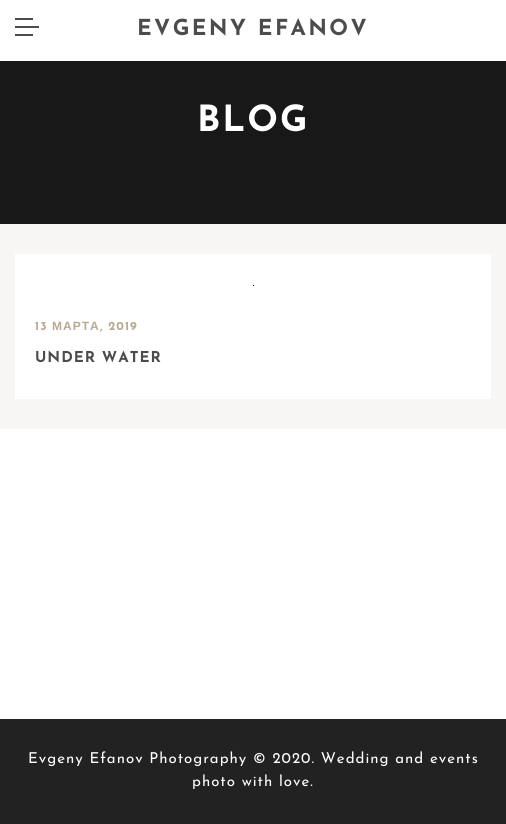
import math
import cairo



def draw_spaced(context, x, y, s, letter, word):
    context.move_to(x, y)
    for ch in s:
        context.show_text(ch)
        context.rel_move_to(letter + word * (ch == ' '), 0)


def draw(context):
    context.set_source_rgb(1, 1, 1)
    context.paint()
    context.set_source_rgb(76 / 255, 76 / 255, 76 / 255)
    context.rectangle(15, 18, 18, 2)
    context.fill()
    context.rectangle(15, 26, 24, 2)
    context.fill()
    context.rectangle(15, 34, 18, 2)
    context.fill()
    context.set_source_rgb(24 / 255, 24 / 255, 24 / 255)
    context.rectangle(0, 61, 506, 163)
    context.fill()
    context.set_source_rgb(248 / 255, 246 / 255, 245 / 255)
    context.rectangle(0, 224, 506, 205)
    context.fill()
    context.set_source_rgb(1, 1, 1)
    context.rectangle(15, 254, 476, 145)
    context.fill()
    context.set_source_rgb(0, 0, 0)
    context.rectangle(253, 285, 1, 1)
    context.fill()
    context.set_source_rgb(34 / 255, 34 / 255, 34 / 255)
    context.rectangle(0, 719, 506, 105)
    context.fill()
    context.select_font_face("Josefin Sans", cairo.FontSlant.NORMAL, cairo.FontWeight.BOLD)
    context.set_font_size(22)
    context.set_source_rgb(76 / 255, 76 / 255, 76 / 255)
    draw_spaced(context, 137, 35, "EVGENY EFANOV", 2.4, 0)
    context.set_font_size(36)
    context.set_source_rgb(1, 1, 1)
    draw_spaced(context, 197, 131, "BLOG", 2, 0)
    context.set_font_size(12)
    context.set_source_rgb(185 / 255, 168 / 255, 147 / 255)
    draw_spaced(context, 35, 330, "13", 1, 0)
    context.select_font_face("Liberation Sans", cairo.FontSlant.NORMAL, cairo.FontWeight.BOLD)
    draw_spaced(context, 52, 330, "МАРТА", 1, 0)
    context.select_font_face("Josefin Sans", cairo.FontSlant.NORMAL, cairo.FontWeight.BOLD)
    draw_spaced(context, 100, 330, ", 2019", 1, 0)
    context.set_font_size(15)
    context.set_source_rgb(76 / 255, 76 / 255, 76 / 255)
    draw_spaced(context, 35, 362, "UNDER WATER", 1, 0)
    context.select_font_face("Josefin Sans")
    context.set_source_rgb(1, 1, 1)
    draw_spaced(context, 28, 763, "Evgeny Efanov Photography © 2020. Wedding and events", 1, 0)
    draw_spaced(context, 192, 786, "photo with love.", 1, 0)


surface = cairo.ImageSurface(cairo.Format.RGB24, 506, 824)
context = cairo.Context(surface)
options = cairo.FontOptions()
options.set_hint_metrics(cairo.HintMetrics.OFF)
options.set_hint_style(cairo.HintStyle.NONE)
context.set_font_options(options)
context.set_miter_limit(4)
draw(context)
surface.write_to_png("out.png")
